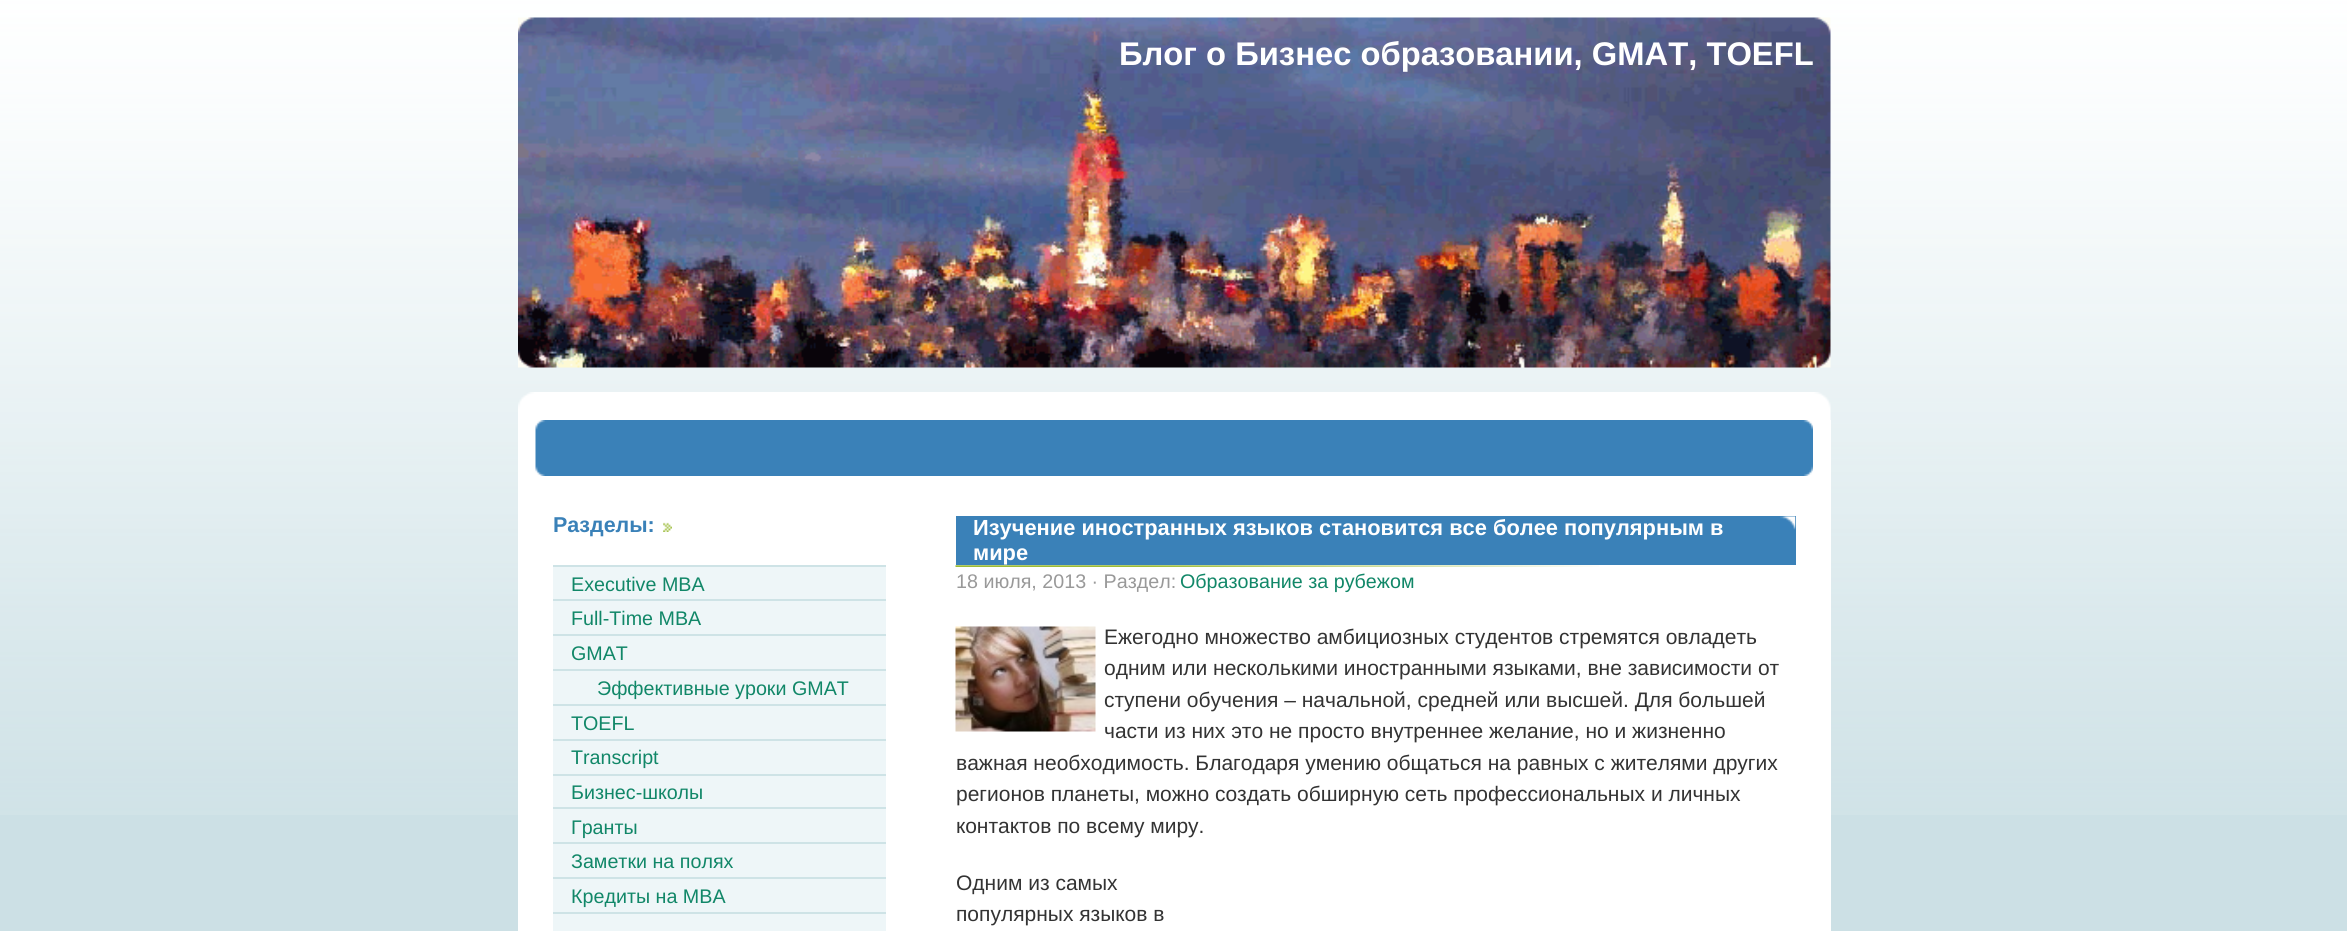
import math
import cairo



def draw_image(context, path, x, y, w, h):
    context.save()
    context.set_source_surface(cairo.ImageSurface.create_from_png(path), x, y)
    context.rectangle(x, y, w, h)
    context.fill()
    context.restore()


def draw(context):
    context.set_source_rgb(204 / 255, 224 / 255, 229 / 255)
    context.paint()
    draw_image(context, "images/1.png", 0, 0, 2347, 815)
    draw_image(context, "images/2.png", 518, 17, 1313, 351)
    draw_image(context, "images/3.png", 518, 392, 1313, 28)
    context.set_source_rgb(1, 1, 1)
    context.rectangle(518, 420, 1313, 511)
    context.fill()
    draw_image(context, "images/4.png", 535, 420, 1278, 56)
    draw_image(context, "images/5.png", 663, 522, 9, 10)
    context.set_source_rgb(238 / 255, 246 / 255, 248 / 255)
    context.rectangle(553, 567, 333, 364)
    context.fill()
    context.set_source_rgb(206 / 255, 227 / 255, 230 / 255)
    context.rectangle(553, 565, 333, 2)
    context.fill()
    context.rectangle(553, 599, 333, 2)
    context.fill()
    context.rectangle(553, 634, 333, 2)
    context.fill()
    context.rectangle(553, 704, 333, 2)
    context.fill()
    context.rectangle(553, 669, 333, 2)
    context.fill()
    context.rectangle(553, 739, 333, 2)
    context.fill()
    context.rectangle(553, 774, 333, 2)
    context.fill()
    context.rectangle(553, 807, 333, 2)
    context.fill()
    context.rectangle(553, 842, 333, 2)
    context.fill()
    context.rectangle(553, 877, 333, 2)
    context.fill()
    context.rectangle(553, 912, 333, 2)
    context.fill()
    context.set_source_rgb(58 / 255, 129 / 255, 184 / 255)
    context.rectangle(956, 516, 840, 49)
    context.fill()
    draw_image(context, "images/6.png", 1780, 516, 16, 14)
    draw_image(context, "images/7.png", 955, 565, 644, 2)
    draw_image(context, "images/8.png", 955, 626, 141, 106)
    context.select_font_face("Liberation Sans", cairo.FontSlant.NORMAL, cairo.FontWeight.BOLD)
    context.set_font_size(32.75)
    context.set_source_rgb(1, 1, 1)
    context.move_to(1119, 65)
    context.show_text("Блог о Бизнес образовании, GMAT, TOEFL")
    context.set_font_size(21.5)
    context.set_source_rgb(58 / 255, 129 / 255, 184 / 255)
    context.move_to(553, 532)
    context.show_text("Разделы:")
    context.select_font_face("Liberation Sans")
    context.set_font_size(19.7)
    context.set_source_rgb(17 / 255, 135 / 255, 104 / 255)
    context.move_to(571, 591)
    context.show_text("Executive MBA")
    context.move_to(571, 625)
    context.show_text("Full-Time MBA")
    context.move_to(571, 660)
    context.show_text("GMAT")
    context.move_to(597, 695)
    context.show_text("Эффективные уроки GMAT")
    context.move_to(571, 730)
    context.show_text("TOEFL")
    context.move_to(571, 764)
    context.show_text("Transcript")
    context.move_to(571, 799)
    context.show_text("Бизнес-школы")
    context.move_to(571, 834)
    context.show_text("Гранты")
    context.move_to(571, 868)
    context.show_text("Заметки на полях")
    context.move_to(571, 903)
    context.show_text("Кредиты на MBA")
    context.select_font_face("Liberation Sans", cairo.FontSlant.NORMAL, cairo.FontWeight.BOLD)
    context.set_font_size(21.85)
    context.set_source_rgb(1, 1, 1)
    context.move_to(973, 535)
    context.show_text("Изучение иностранных языков становится все более популярным в")
    context.move_to(973, 560)
    context.show_text("мире")
    context.select_font_face("Liberation Sans")
    context.set_font_size(19.7)
    context.set_source_rgb(153 / 255, 153 / 255, 153 / 255)
    context.move_to(956, 588)
    context.show_text("18 июля, 2013 · Раздел:")
    context.set_source_rgb(17 / 255, 135 / 255, 104 / 255)
    context.move_to(1180, 588)
    context.show_text("Образование за рубежом")
    context.set_font_size(21)
    context.set_source_rgb(51 / 255, 51 / 255, 51 / 255)
    context.move_to(1104, 644)
    context.show_text("Ежегодно множество амбициозных студентов стремятся овладеть")
    context.move_to(1104, 675)
    context.show_text("одним или несколькими иностранными языками, вне зависимости от")
    context.move_to(1104, 707)
    context.show_text("ступени обучения – начальной, средней или высшей. Для большей")
    context.move_to(1104, 738)
    context.show_text("части из них это не просто внутреннее желание, но и жизненно")
    context.move_to(956, 770)
    context.show_text("важная необходимость. Благодаря умению общаться на равных с жителями других")
    context.move_to(956, 801)
    context.show_text("регионов планеты, можно создать обширную сеть профессиональных и личных")
    context.move_to(956, 833)
    context.show_text("контактов по всему миру.")
    context.move_to(956, 890)
    context.show_text("Одним из самых")
    context.move_to(956, 921)
    context.show_text("популярных языков в")


surface = cairo.ImageSurface(cairo.Format.RGB24, 2347, 931)
context = cairo.Context(surface)
options = cairo.FontOptions()
options.set_hint_metrics(cairo.HintMetrics.OFF)
options.set_hint_style(cairo.HintStyle.NONE)
context.set_font_options(options)
context.set_miter_limit(4)
draw(context)
surface.write_to_png("out.png")
